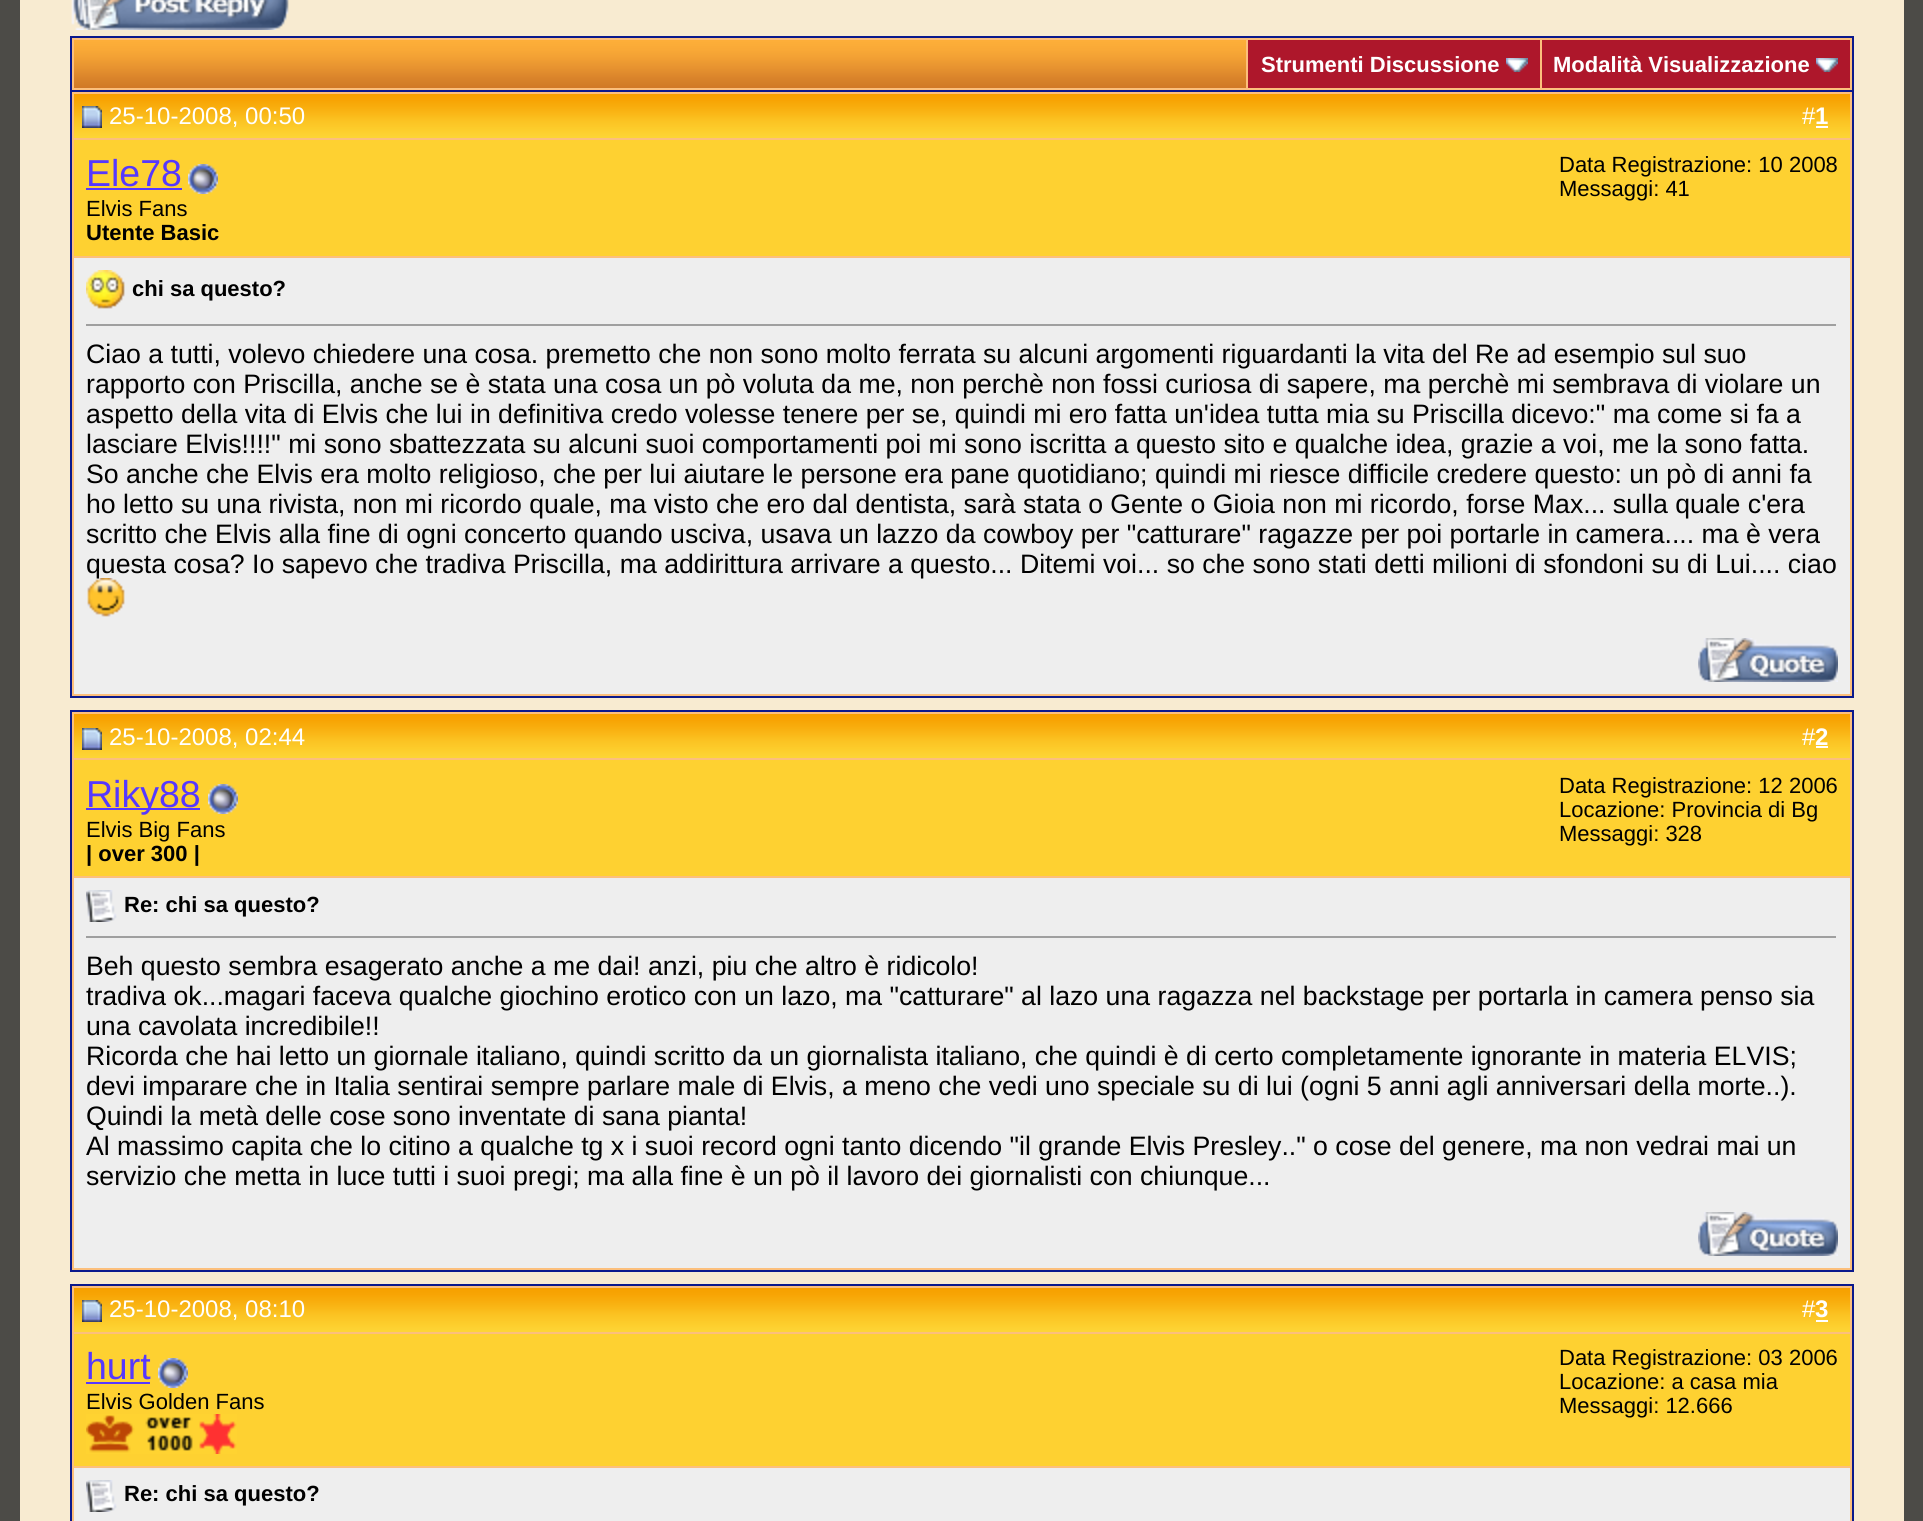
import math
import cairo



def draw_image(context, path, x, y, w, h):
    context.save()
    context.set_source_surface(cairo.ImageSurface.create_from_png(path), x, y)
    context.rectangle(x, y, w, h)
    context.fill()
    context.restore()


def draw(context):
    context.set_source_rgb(76 / 255, 75 / 255, 71 / 255)
    context.paint()
    context.set_source_rgb(248 / 255, 235 / 255, 209 / 255)
    context.rectangle(20, 0, 1884, 1521)
    context.fill()
    draw_image(context, "images/1.png", 71, 0, 218, 30)
    context.set_source_rgb(252 / 255, 191 / 255, 124 / 255)
    context.rectangle(72, 38, 1780, 52)
    context.fill()
    context.set_source_rgb(11 / 255, 25 / 255, 140 / 255)
    context.rectangle(70, 36, 1784, 2)
    context.fill()
    context.rectangle(1852, 36, 2, 54)
    context.fill()
    context.rectangle(70, 36, 2, 54)
    context.fill()
    draw_image(context, "images/2.png", 74, 40, 1172, 48)
    context.set_source_rgb(174 / 255, 23 / 255, 43 / 255)
    context.rectangle(1248, 40, 292, 48)
    context.fill()
    draw_image(context, "images/3.png", 1506, 58, 22, 14)
    context.rectangle(1542, 40, 308, 48)
    context.fill()
    draw_image(context, "images/3.png", 1816, 58, 22, 14)
    context.set_source_rgb(252 / 255, 191 / 255, 124 / 255)
    context.rectangle(71, 91, 1782, 606)
    context.fill_preserve()
    context.set_source_rgb(11 / 255, 25 / 255, 140 / 255)
    context.stroke()
    draw_image(context, "images/4.png", 74, 94, 1776, 44)
    draw_image(context, "images/5.png", 82, 106, 20, 22)
    context.set_source_rgb(1, 1, 1)
    context.rectangle(1816, 126, 12, 2)
    context.fill()
    context.set_source_rgb(254 / 255, 209 / 255, 49 / 255)
    context.rectangle(74, 140, 1776, 116)
    context.fill()
    context.set_source_rgb(86 / 255, 56 / 255, 254 / 255)
    context.rectangle(86, 188, 96, 2)
    context.fill()
    draw_image(context, "images/6.png", 188, 164, 30, 30)
    context.set_source_rgb(238 / 255, 238 / 255, 238 / 255)
    context.rectangle(74, 258, 1776, 436)
    context.fill()
    draw_image(context, "images/7.png", 86, 270, 39, 39)
    context.set_source_rgb(159 / 255, 159 / 255, 159 / 255)
    context.rectangle(86, 324, 1752, 2)
    context.fill()
    context.set_source_rgb(238 / 255, 238 / 255, 238 / 255)
    context.rectangle(1836, 324, 2, 2)
    context.fill()
    draw_image(context, "images/9.png", 1698, 638, 140, 44)
    context.set_source_rgb(252 / 255, 191 / 255, 124 / 255)
    context.rectangle(71, 711, 1782, 560)
    context.fill_preserve()
    context.set_source_rgb(11 / 255, 25 / 255, 140 / 255)
    context.stroke()
    draw_image(context, "images/4.png", 74, 714, 1776, 44)
    draw_image(context, "images/10.png", 82, 728, 20, 22)
    context.set_source_rgb(1, 1, 1)
    context.rectangle(1816, 746, 12, 2)
    context.fill()
    context.set_source_rgb(254 / 255, 209 / 255, 49 / 255)
    context.rectangle(74, 760, 1776, 116)
    context.fill()
    context.set_source_rgb(86 / 255, 56 / 255, 254 / 255)
    context.rectangle(86, 808, 114, 2)
    context.fill()
    draw_image(context, "images/6.png", 208, 784, 30, 30)
    context.set_source_rgb(238 / 255, 238 / 255, 238 / 255)
    context.rectangle(74, 878, 1776, 390)
    context.fill()
    draw_image(context, "images/11.png", 86, 890, 31, 32)
    context.set_source_rgb(159 / 255, 159 / 255, 159 / 255)
    context.rectangle(86, 936, 1752, 2)
    context.fill()
    context.set_source_rgb(238 / 255, 238 / 255, 238 / 255)
    context.rectangle(1836, 936, 2, 2)
    context.fill()
    draw_image(context, "images/9.png", 1698, 1212, 140, 44)
    context.set_source_rgb(252 / 255, 191 / 255, 124 / 255)
    context.rectangle(71, 1285, 1782, 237)
    context.fill_preserve()
    context.set_source_rgb(11 / 255, 25 / 255, 140 / 255)
    context.stroke()
    draw_image(context, "images/4.png", 74, 1288, 1776, 44)
    draw_image(context, "images/5.png", 82, 1300, 20, 22)
    context.set_source_rgb(1, 1, 1)
    context.rectangle(1816, 1320, 12, 2)
    context.fill()
    context.set_source_rgb(254 / 255, 209 / 255, 49 / 255)
    context.rectangle(74, 1334, 1776, 132)
    context.fill()
    context.set_source_rgb(86 / 255, 56 / 255, 254 / 255)
    context.rectangle(86, 1382, 64, 2)
    context.fill()
    draw_image(context, "images/6.png", 158, 1358, 30, 30)
    draw_image(context, "images/12.png", 86, 1414, 151, 40)
    context.set_source_rgb(238 / 255, 238 / 255, 238 / 255)
    context.rectangle(74, 1468, 1776, 53)
    context.fill()
    draw_image(context, "images/11.png", 86, 1480, 31, 32)
    context.select_font_face("Liberation Sans", cairo.FontSlant.NORMAL, cairo.FontWeight.BOLD)
    context.set_font_size(22)
    context.set_source_rgb(1, 1, 1)
    context.move_to(1261, 72)
    context.show_text("Strumenti Discussione")
    context.move_to(1553, 72)
    context.show_text("Modalità Visualizzazione")
    context.select_font_face("Liberation Sans")
    context.set_font_size(24)
    context.move_to(109, 124)
    context.show_text("25-10-2008, 00:50")
    context.move_to(1802, 124)
    context.show_text("#")
    context.select_font_face("Liberation Sans", cairo.FontSlant.NORMAL, cairo.FontWeight.BOLD)
    context.move_to(1815, 124)
    context.show_text("1")
    context.select_font_face("Liberation Sans")
    context.set_font_size(37.5)
    context.set_source_rgb(86 / 255, 56 / 255, 254 / 255)
    context.move_to(86, 186)
    context.show_text("Ele78")
    context.set_font_size(22)
    context.set_source_rgb(0, 0, 0)
    context.move_to(86, 216)
    context.show_text("Elvis Fans")
    context.select_font_face("Liberation Sans", cairo.FontSlant.NORMAL, cairo.FontWeight.BOLD)
    context.move_to(86, 240)
    context.show_text("Utente Basic")
    context.select_font_face("Liberation Sans")
    context.move_to(1559, 172)
    context.show_text("Data Registrazione: 10 2008")
    context.move_to(1559, 196)
    context.show_text("Messaggi: 41")
    context.select_font_face("Liberation Sans", cairo.FontSlant.NORMAL, cairo.FontWeight.BOLD)
    context.move_to(132, 296)
    context.show_text("chi sa questo?")
    context.select_font_face("Liberation Sans")
    context.set_font_size(26.67)
    context.move_to(86, 363)
    context.show_text("Ciao a tutti, volevo chiedere una cosa. premetto che non sono molto ferrata su alcuni argomenti riguardanti la vita del Re ad esempio sul suo")
    context.move_to(86, 393)
    context.show_text("rapporto con Priscilla, anche se è stata una cosa un pò voluta da me, non perchè non fossi curiosa di sapere, ma perchè mi sembrava di violare un")
    context.move_to(86, 423)
    context.show_text("aspetto della vita di Elvis che lui in definitiva credo volesse tenere per se, quindi mi ero fatta un'idea tutta mia su Priscilla dicevo:\" ma come si fa a")
    context.move_to(86, 453)
    context.show_text("lasciare Elvis!!!!\" mi sono sbattezzata su alcuni suoi comportamenti poi mi sono iscritta a questo sito e qualche idea, grazie a voi, me la sono fatta.")
    context.move_to(86, 483)
    context.show_text("So anche che Elvis era molto religioso, che per lui aiutare le persone era pane quotidiano; quindi mi riesce difficile credere questo: un pò di anni fa")
    context.move_to(86, 513)
    context.show_text("ho letto su una rivista, non mi ricordo quale, ma visto che ero dal dentista, sarà stata o Gente o Gioia non mi ricordo, forse Max... sulla quale c'era")
    context.move_to(86, 543)
    context.show_text("scritto che Elvis alla fine di ogni concerto quando usciva, usava un lazzo da cowboy per \"catturare\" ragazze per poi portarle in camera.... ma è vera")
    context.move_to(86, 573)
    context.show_text("questa cosa? Io sapevo che tradiva Priscilla, ma addirittura arrivare a questo... Ditemi voi... so che sono stati detti milioni di sfondoni su di Lui.... ciao")
    draw_image(context, "images/8.png", 87, 578, 38, 39)
    context.set_font_size(24)
    context.set_source_rgb(1, 1, 1)
    context.move_to(109, 745)
    context.show_text("25-10-2008, 02:44")
    context.move_to(1802, 745)
    context.show_text("#")
    context.select_font_face("Liberation Sans", cairo.FontSlant.NORMAL, cairo.FontWeight.BOLD)
    context.move_to(1815, 745)
    context.show_text("2")
    context.select_font_face("Liberation Sans")
    context.set_font_size(37.5)
    context.set_source_rgb(86 / 255, 56 / 255, 254 / 255)
    context.move_to(86, 807)
    context.show_text("Riky88")
    context.set_font_size(22)
    context.set_source_rgb(0, 0, 0)
    context.move_to(86, 837)
    context.show_text("Elvis Big Fans")
    context.select_font_face("Liberation Sans", cairo.FontSlant.NORMAL, cairo.FontWeight.BOLD)
    context.move_to(86, 861)
    context.show_text("| over 300 |")
    context.select_font_face("Liberation Sans")
    context.move_to(1559, 793)
    context.show_text("Data Registrazione: 12 2006")
    context.move_to(1559, 817)
    context.show_text("Locazione: Provincia di Bg")
    context.move_to(1559, 841)
    context.show_text("Messaggi: 328")
    context.select_font_face("Liberation Sans", cairo.FontSlant.NORMAL, cairo.FontWeight.BOLD)
    context.move_to(124, 912)
    context.show_text("Re: chi sa questo?")
    context.select_font_face("Liberation Sans")
    context.set_font_size(26.67)
    context.move_to(86, 975)
    context.show_text("Beh questo sembra esagerato anche a me dai! anzi, piu che altro è ridicolo!")
    context.move_to(86, 1005)
    context.show_text("tradiva ok...magari faceva qualche giochino erotico con un lazo, ma \"catturare\" al lazo una ragazza nel backstage per portarla in camera penso sia")
    context.move_to(86, 1035)
    context.show_text("una cavolata incredibile!!")
    context.move_to(86, 1065)
    context.show_text("Ricorda che hai letto un giornale italiano, quindi scritto da un giornalista italiano, che quindi è di certo completamente ignorante in materia ELVIS;")
    context.move_to(86, 1095)
    context.show_text("devi imparare che in Italia sentirai sempre parlare male di Elvis, a meno che vedi uno speciale su di lui (ogni 5 anni agli anniversari della morte..).")
    context.move_to(86, 1125)
    context.show_text("Quindi la metà delle cose sono inventate di sana pianta!")
    context.move_to(86, 1155)
    context.show_text("Al massimo capita che lo citino a qualche tg x i suoi record ogni tanto dicendo \"il grande Elvis Presley..\" o cose del genere, ma non vedrai mai un")
    context.move_to(86, 1185)
    context.show_text("servizio che metta in luce tutti i suoi pregi; ma alla fine è un pò il lavoro dei giornalisti con chiunque...")
    context.set_font_size(24)
    context.set_source_rgb(1, 1, 1)
    context.move_to(109, 1317)
    context.show_text("25-10-2008, 08:10")
    context.move_to(1802, 1317)
    context.show_text("#")
    context.select_font_face("Liberation Sans", cairo.FontSlant.NORMAL, cairo.FontWeight.BOLD)
    context.move_to(1815, 1317)
    context.show_text("3")
    context.select_font_face("Liberation Sans")
    context.set_font_size(37.5)
    context.set_source_rgb(86 / 255, 56 / 255, 254 / 255)
    context.move_to(86, 1379)
    context.show_text("hurt")
    context.set_font_size(22)
    context.set_source_rgb(0, 0, 0)
    context.move_to(86, 1409)
    context.show_text("Elvis Golden Fans")
    context.move_to(1559, 1365)
    context.show_text("Data Registrazione: 03 2006")
    context.move_to(1559, 1389)
    context.show_text("Locazione: a casa mia")
    context.move_to(1559, 1413)
    context.show_text("Messaggi: 12.666")
    context.select_font_face("Liberation Sans", cairo.FontSlant.NORMAL, cairo.FontWeight.BOLD)
    context.move_to(124, 1501)
    context.show_text("Re: chi sa questo?")


surface = cairo.ImageSurface(cairo.Format.RGB24, 1923, 1521)
context = cairo.Context(surface)
options = cairo.FontOptions()
options.set_hint_metrics(cairo.HintMetrics.OFF)
options.set_hint_style(cairo.HintStyle.NONE)
context.set_font_options(options)
context.set_miter_limit(4)
draw(context)
surface.write_to_png("out.png")
